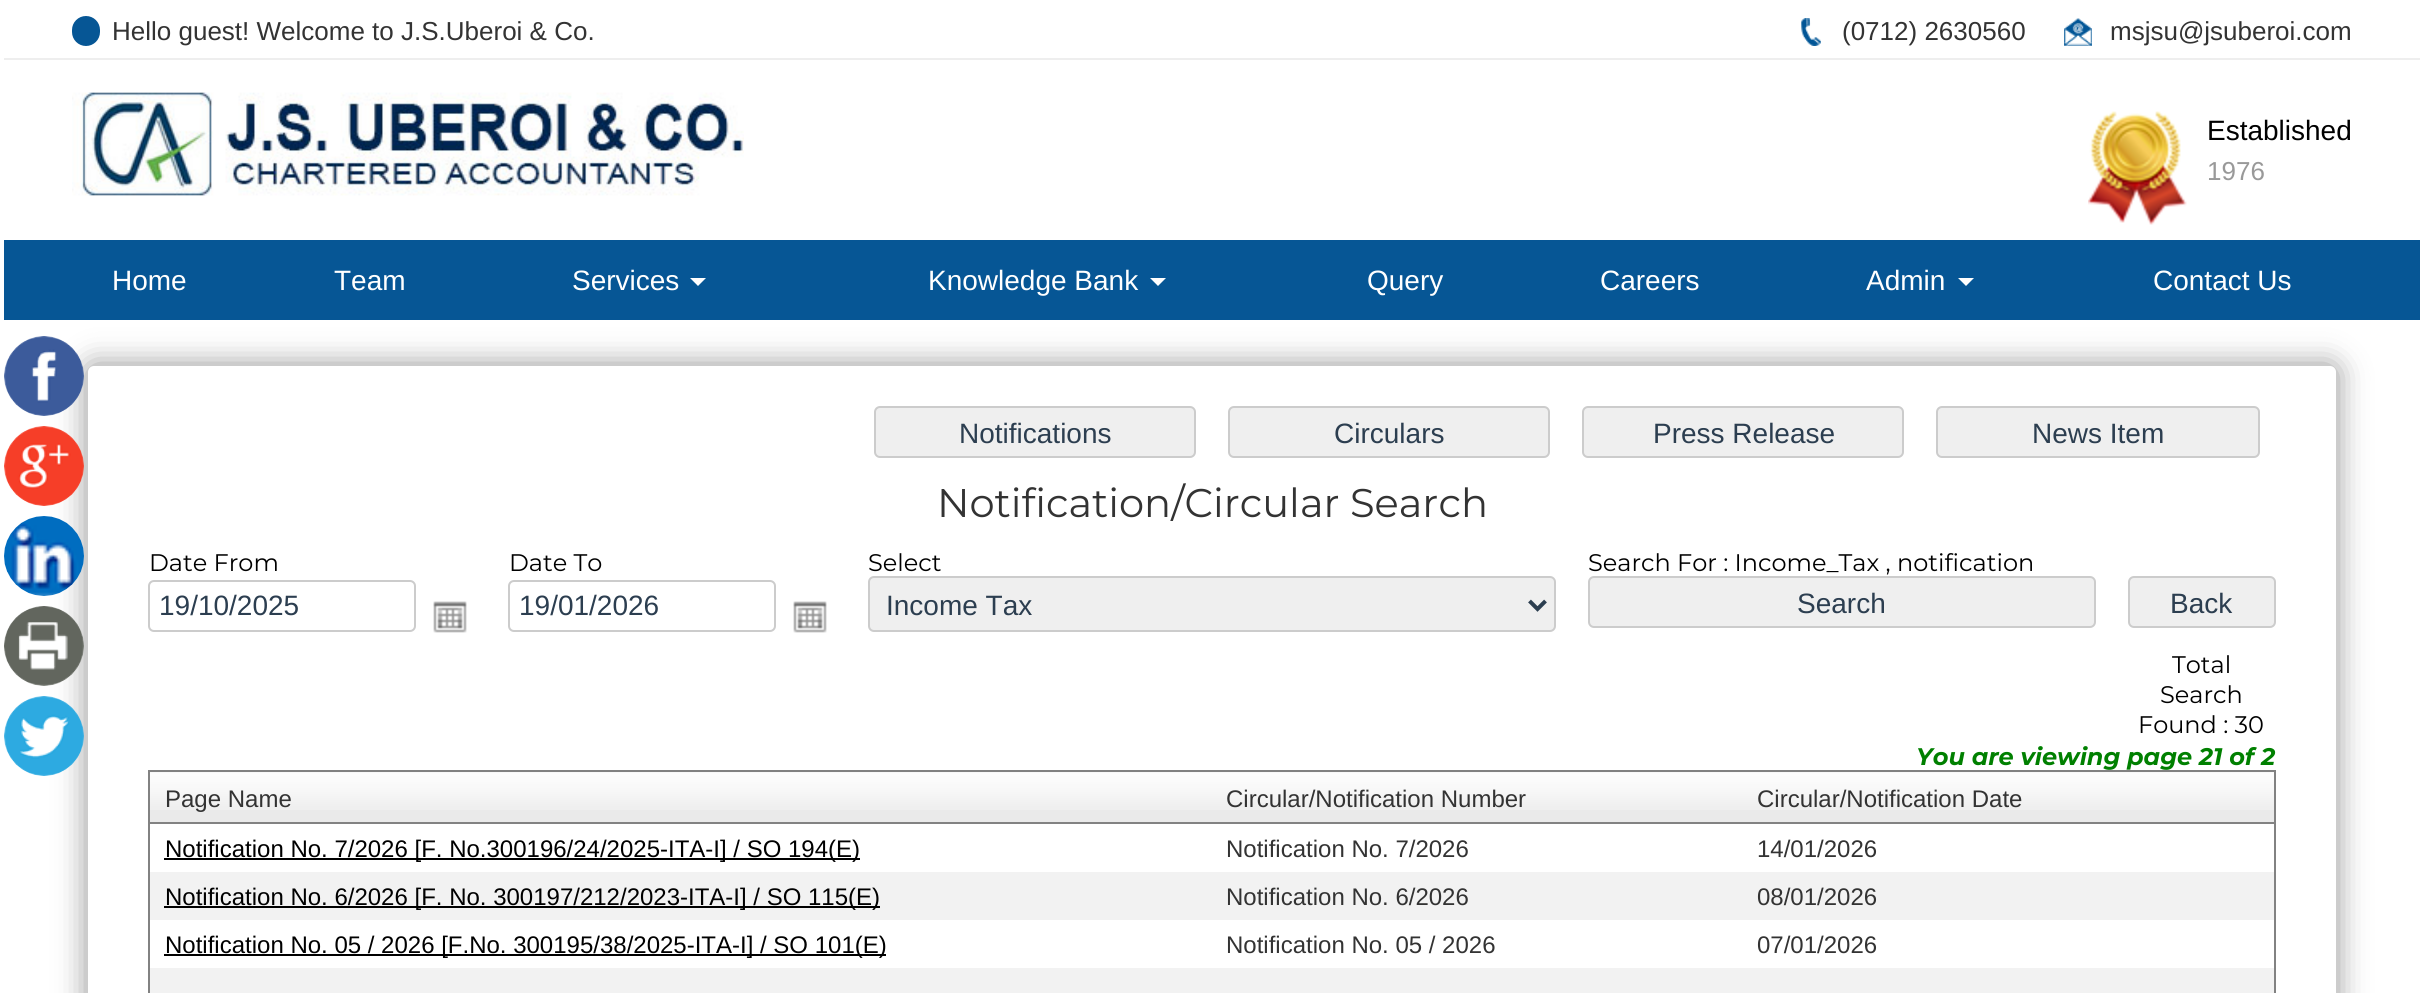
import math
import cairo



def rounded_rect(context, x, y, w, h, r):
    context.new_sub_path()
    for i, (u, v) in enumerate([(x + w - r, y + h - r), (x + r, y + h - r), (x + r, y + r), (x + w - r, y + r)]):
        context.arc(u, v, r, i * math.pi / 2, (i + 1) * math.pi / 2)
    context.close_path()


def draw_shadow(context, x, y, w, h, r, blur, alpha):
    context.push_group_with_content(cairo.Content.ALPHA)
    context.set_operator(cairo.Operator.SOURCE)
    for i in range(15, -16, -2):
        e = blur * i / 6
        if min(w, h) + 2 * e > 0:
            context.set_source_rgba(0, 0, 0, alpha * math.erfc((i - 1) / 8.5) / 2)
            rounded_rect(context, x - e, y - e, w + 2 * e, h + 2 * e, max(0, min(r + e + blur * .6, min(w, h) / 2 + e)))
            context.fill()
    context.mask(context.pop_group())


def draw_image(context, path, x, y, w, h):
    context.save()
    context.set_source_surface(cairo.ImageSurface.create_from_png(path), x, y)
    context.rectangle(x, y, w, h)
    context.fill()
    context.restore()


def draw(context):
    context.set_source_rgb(1, 1, 1)
    context.paint()
    context.set_source_rgb(238 / 255, 238 / 255, 238 / 255)
    context.rectangle(4, 58, 2416, 2)
    context.fill()
    context.set_source_rgb(6 / 255, 86 / 255, 149 / 255)
    rounded_rect(context, 72, 16, 28, 30, 14)
    context.fill()
    draw_image(context, "images/1.png", 1801, 18, 20, 28)
    draw_image(context, "images/2.png", 2064, 18, 28, 28)
    draw_image(context, "images/3.png", 72, 92, 672, 104)
    draw_image(context, "images/4.png", 2088, 111, 99, 114)
    context.set_source_rgb(0, 0, 0)
    draw_shadow(context, 86, 364, 2252, 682, 8, 15, 0.4)
    draw_image(context, "images/5.png", 4, 336, 80, 80)
    draw_image(context, "images/6.png", 4, 426, 80, 80)
    draw_image(context, "images/7.png", 4, 516, 80, 80)
    draw_image(context, "images/8.png", 4, 606, 80, 80)
    draw_image(context, "images/9.png", 4, 696, 80, 80)
    context.set_source_rgb(6 / 255, 86 / 255, 149 / 255)
    context.rectangle(4, 240, 2416, 80)
    context.fill()
    context.set_source_rgb(1, 1, 1)
    context.new_path()
    context.move_to(690, 278)
    context.line_to(706, 278)
    context.line_to(698, 286)
    context.close_path()
    context.fill()
    context.new_path()
    context.move_to(1150, 278)
    context.line_to(1166, 278)
    context.line_to(1158, 286)
    context.close_path()
    context.fill()
    context.new_path()
    context.move_to(1958, 278)
    context.line_to(1974, 278)
    context.line_to(1966, 286)
    context.close_path()
    context.fill()
    rounded_rect(context, 88, 366, 2248, 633, 6)
    context.fill()
    context.set_source_rgb(239 / 255, 239 / 255, 239 / 255)
    rounded_rect(context, 875, 407, 320, 50, 5)
    context.fill_preserve()
    context.set_source_rgb(204 / 255, 204 / 255, 204 / 255)
    context.stroke()
    context.set_source_rgb(239 / 255, 239 / 255, 239 / 255)
    rounded_rect(context, 1229, 407, 320, 50, 5)
    context.fill_preserve()
    context.set_source_rgb(204 / 255, 204 / 255, 204 / 255)
    context.stroke()
    context.set_source_rgb(239 / 255, 239 / 255, 239 / 255)
    rounded_rect(context, 1583, 407, 320, 50, 5)
    context.fill_preserve()
    context.set_source_rgb(204 / 255, 204 / 255, 204 / 255)
    context.stroke()
    context.set_source_rgb(239 / 255, 239 / 255, 239 / 255)
    rounded_rect(context, 1937, 407, 322, 50, 5)
    context.fill_preserve()
    context.set_source_rgb(204 / 255, 204 / 255, 204 / 255)
    context.stroke()
    rounded_rect(context, 149, 581, 266, 50, 5)
    context.stroke()
    draw_image(context, "images/10.png", 433, 601, 34, 32)
    rounded_rect(context, 509, 581, 266, 50, 5)
    context.stroke()
    draw_image(context, "images/10.png", 793, 601, 34, 32)
    context.set_source_rgb(239 / 255, 239 / 255, 239 / 255)
    rounded_rect(context, 869, 577, 686, 54, 5)
    context.fill_preserve()
    context.set_source_rgb(204 / 255, 204 / 255, 204 / 255)
    context.stroke()
    context.new_path()
    context.move_to(1529.5, 601)
    context.line_to(1537.5, 609)
    context.line_to(1545.5, 601)
    context.set_source_rgb(44 / 255, 62 / 255, 80 / 255)
    context.set_line_width(4)
    context.stroke()
    context.set_source_rgb(239 / 255, 239 / 255, 239 / 255)
    rounded_rect(context, 1589, 577, 506, 50, 5)
    context.fill_preserve()
    context.set_source_rgb(204 / 255, 204 / 255, 204 / 255)
    context.set_line_width(2)
    context.stroke()
    context.set_source_rgb(239 / 255, 239 / 255, 239 / 255)
    rounded_rect(context, 2129, 577, 146, 50, 5)
    context.fill_preserve()
    context.set_source_rgb(204 / 255, 204 / 255, 204 / 255)
    context.stroke()
    context.rectangle(149, 771, 2126, 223)
    context.set_source_rgb(130 / 255, 130 / 255, 130 / 255)
    context.stroke()
    context.set_source_rgb(234 / 255, 234 / 255, 234 / 255)
    context.rectangle(150, 772, 2124, 50)
    context.fill()
    draw_image(context, "images/11.png", 150, 772, 1062, 38)
    context.set_source_rgb(130 / 255, 130 / 255, 130 / 255)
    context.rectangle(150, 822, 2124, 2)
    context.fill()
    draw_image(context, "images/12.png", 1212, 772, 530, 38)
    draw_image(context, "images/13.png", 1742, 772, 532, 38)
    context.set_source_rgb(0, 0, 0)
    context.rectangle(164, 858, 696, 2)
    context.fill()
    context.set_source_rgb(242 / 255, 242 / 255, 242 / 255)
    context.rectangle(150, 872, 2124, 48)
    context.fill()
    context.set_source_rgb(0, 0, 0)
    context.rectangle(164, 906, 716, 2)
    context.fill()
    context.rectangle(164, 954, 722, 2)
    context.fill()
    context.set_source_rgb(242 / 255, 242 / 255, 242 / 255)
    context.rectangle(150, 968, 2124, 25)
    context.fill()
    context.select_font_face("Liberation Sans")
    context.set_font_size(26)
    context.set_source_rgb(51 / 255, 51 / 255, 51 / 255)
    context.move_to(112, 40)
    context.show_text("Hello guest! Welcome to J.S.Uberoi & Co.")
    context.move_to(1842, 40)
    context.show_text("(0712) 2630560")
    context.move_to(2110, 40)
    context.show_text("msjsu@jsuberoi.com")
    context.set_font_size(28)
    context.set_source_rgb(0, 0, 0)
    context.move_to(2207, 140)
    context.show_text("Established")
    context.set_font_size(26)
    context.set_source_rgb(153 / 255, 153 / 255, 153 / 255)
    context.move_to(2207, 180)
    context.show_text("1976")
    context.set_font_size(28)
    context.set_source_rgb(1, 1, 1)
    context.move_to(112, 290)
    context.show_text("Home")
    context.move_to(334, 290)
    context.show_text("Team")
    context.move_to(572, 290)
    context.show_text("Services")
    context.move_to(928, 290)
    context.show_text("Knowledge Bank")
    context.move_to(1367, 290)
    context.show_text("Query")
    context.move_to(1600, 290)
    context.show_text("Careers")
    context.move_to(1866, 290)
    context.show_text("Admin")
    context.move_to(2153, 290)
    context.show_text("Contact Us")
    context.set_source_rgb(44 / 255, 62 / 255, 80 / 255)
    context.move_to(959, 443)
    context.show_text("Notifications")
    context.move_to(1334, 443)
    context.show_text("Circulars")
    context.move_to(1653, 443)
    context.show_text("Press Release")
    context.move_to(2032, 443)
    context.show_text("News Item")
    context.select_font_face("Montserrat")
    context.set_font_size(40)
    context.set_source_rgb(51 / 255, 51 / 255, 51 / 255)
    context.move_to(937, 517)
    context.show_text("Notification/Circular Search")
    context.set_font_size(24)
    context.set_source_rgb(0, 0, 0)
    context.move_to(149, 571)
    context.show_text("Date From")
    context.select_font_face("Liberation Sans")
    context.set_font_size(28)
    context.set_source_rgb(44 / 255, 62 / 255, 80 / 255)
    context.move_to(159, 615)
    context.show_text("19/10/2025")
    context.select_font_face("Montserrat")
    context.set_font_size(24)
    context.set_source_rgb(0, 0, 0)
    context.move_to(509, 571)
    context.show_text("Date To")
    context.select_font_face("Liberation Sans")
    context.set_font_size(28)
    context.set_source_rgb(44 / 255, 62 / 255, 80 / 255)
    context.move_to(519, 615)
    context.show_text("19/01/2026")
    context.select_font_face("Montserrat")
    context.set_font_size(24)
    context.set_source_rgb(0, 0, 0)
    context.move_to(868, 571)
    context.show_text("Select")
    context.select_font_face("Liberation Sans")
    context.set_font_size(28)
    context.set_source_rgb(44 / 255, 62 / 255, 80 / 255)
    context.move_to(886, 615)
    context.show_text("Income Tax")
    context.select_font_face("Montserrat")
    context.set_font_size(24)
    context.set_source_rgb(0, 0, 0)
    context.move_to(1588, 571)
    context.show_text("Search For : Income_Tax , notification")
    context.select_font_face("Liberation Sans")
    context.set_font_size(28)
    context.set_source_rgb(44 / 255, 62 / 255, 80 / 255)
    context.move_to(1797, 613)
    context.show_text("Search")
    context.move_to(2170, 613)
    context.show_text("Back")
    context.select_font_face("Montserrat")
    context.set_font_size(24)
    context.set_source_rgb(0, 0, 0)
    context.move_to(2172, 673)
    context.show_text("Total")
    context.move_to(2160, 703)
    context.show_text("Search")
    context.move_to(2138, 733)
    context.show_text("Found : 30")
    context.select_font_face("Montserrat", cairo.FontSlant.ITALIC, cairo.FontWeight.BOLD)
    context.set_source_rgb(0, 128 / 255, 0)
    context.move_to(1916, 765)
    context.show_text("You are viewing page 21 of 2")
    context.select_font_face("Liberation Sans")
    context.set_source_rgb(51 / 255, 51 / 255, 51 / 255)
    context.move_to(165, 807)
    context.show_text("Page Name")
    context.move_to(1226, 807)
    context.show_text("Circular/Notification Number")
    context.move_to(1757, 807)
    context.show_text("Circular/Notification Date")
    context.set_source_rgb(0, 0, 0)
    context.move_to(165, 857)
    context.show_text("Notification No. 7/2026 [F. No.300196/24/2025-ITA-I] / SO 194(E)")
    context.set_source_rgb(51 / 255, 51 / 255, 51 / 255)
    context.move_to(1226, 857)
    context.show_text("Notification No. 7/2026")
    context.move_to(1757, 857)
    context.show_text("14/01/2026")
    context.set_source_rgb(0, 0, 0)
    context.move_to(165, 905)
    context.show_text("Notification No. 6/2026 [F. No. 300197/212/2023-ITA-I] / SO 115(E)")
    context.set_source_rgb(51 / 255, 51 / 255, 51 / 255)
    context.move_to(1226, 905)
    context.show_text("Notification No. 6/2026")
    context.move_to(1757, 905)
    context.show_text("08/01/2026")
    context.set_source_rgb(0, 0, 0)
    context.move_to(165, 953)
    context.show_text("Notification No. 05 / 2026 [F.No. 300195/38/2025-ITA-I] / SO 101(E)")
    context.set_source_rgb(51 / 255, 51 / 255, 51 / 255)
    context.move_to(1226, 953)
    context.show_text("Notification No. 05 / 2026")
    context.move_to(1757, 953)
    context.show_text("07/01/2026")


surface = cairo.ImageSurface(cairo.Format.RGB24, 2423, 993)
context = cairo.Context(surface)
options = cairo.FontOptions()
options.set_hint_metrics(cairo.HintMetrics.OFF)
options.set_hint_style(cairo.HintStyle.NONE)
context.set_font_options(options)
context.set_miter_limit(4)
draw(context)
surface.write_to_png("out.png")
